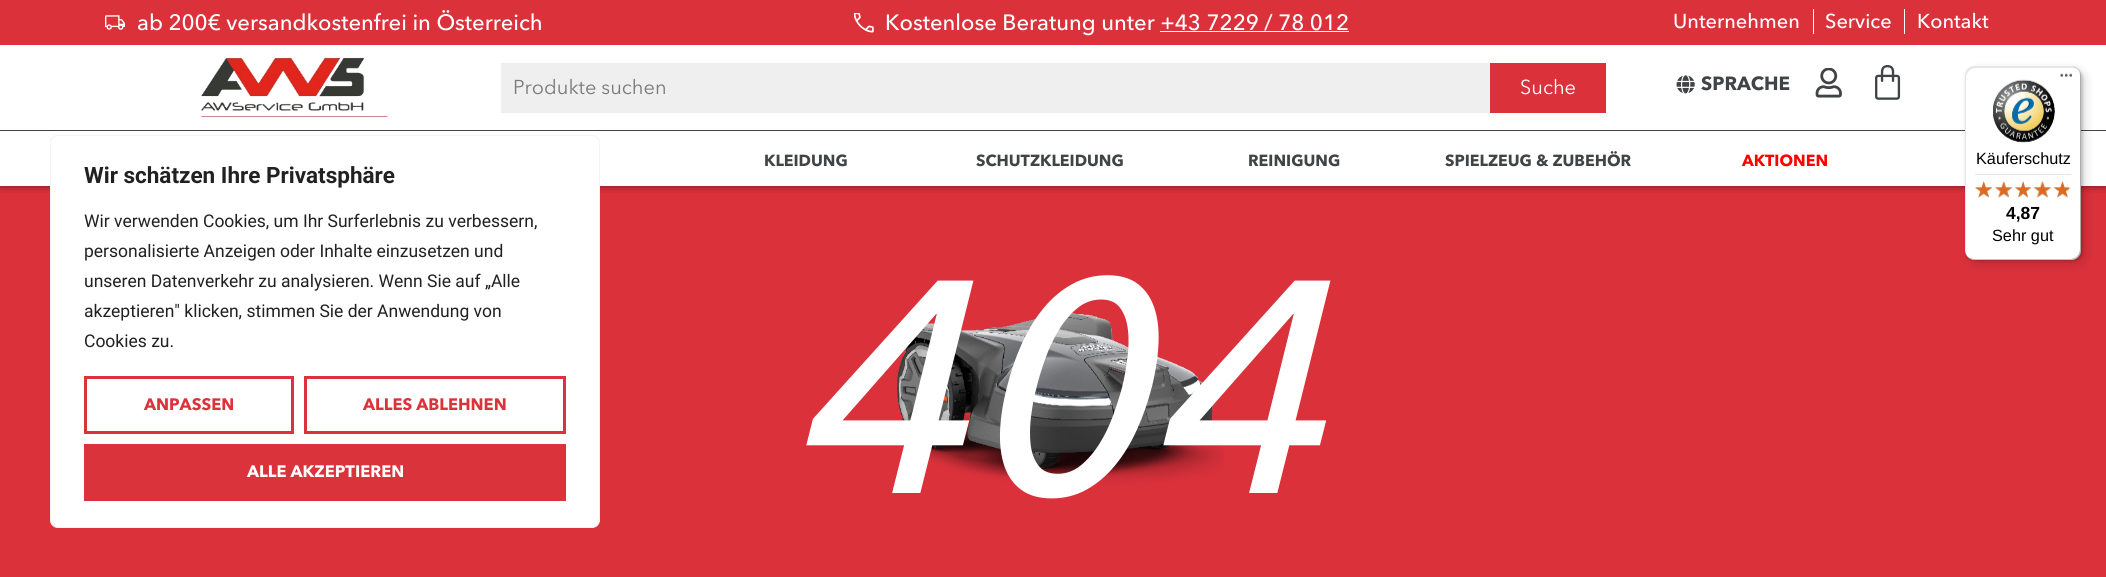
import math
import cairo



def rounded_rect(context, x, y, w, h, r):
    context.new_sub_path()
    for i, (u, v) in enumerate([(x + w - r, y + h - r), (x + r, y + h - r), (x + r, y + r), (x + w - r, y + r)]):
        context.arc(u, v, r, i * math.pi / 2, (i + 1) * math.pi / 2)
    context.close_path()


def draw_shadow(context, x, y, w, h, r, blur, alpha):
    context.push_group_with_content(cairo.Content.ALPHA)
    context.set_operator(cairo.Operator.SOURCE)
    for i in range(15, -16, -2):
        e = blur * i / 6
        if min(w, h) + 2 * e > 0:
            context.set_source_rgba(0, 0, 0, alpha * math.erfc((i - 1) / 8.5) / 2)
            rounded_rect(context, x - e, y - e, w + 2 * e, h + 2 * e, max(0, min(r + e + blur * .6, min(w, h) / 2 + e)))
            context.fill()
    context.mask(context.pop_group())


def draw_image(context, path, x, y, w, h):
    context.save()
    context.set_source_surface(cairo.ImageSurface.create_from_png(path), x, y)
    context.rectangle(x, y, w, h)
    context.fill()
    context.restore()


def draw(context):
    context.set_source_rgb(1, 1, 1)
    context.paint()
    context.set_source_rgb(218 / 255, 49 / 255, 59 / 255)
    context.rectangle(0, 186, 2106, 391)
    context.fill()
    context.save()
    context.rectangle(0, 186, 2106, 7)
    context.clip()
    context.set_source_rgb(0, 0, 0)
    draw_shadow(context, 0, 0, 2106, 186, 0, 4, 0.5)
    context.restore()
    context.rectangle(0, 0, 2106, 45)
    context.fill()
    draw_image(context, "images/1.png", 105, 15, 20, 15)
    draw_image(context, "images/2.png", 854, 13, 20, 20)
    context.set_source_rgb(1, 1, 1)
    context.rectangle(1160, 31, 189, 1)
    context.fill()
    context.rectangle(1813, 9, 1, 25)
    context.fill()
    context.rectangle(1904, 9, 1, 25)
    context.fill()
    draw_image(context, "images/3.png", 200, 57, 188, 61)
    context.set_source_rgb(239 / 255, 239 / 255, 239 / 255)
    context.rectangle(501, 63, 989, 50)
    context.fill()
    context.set_source_rgb(218 / 255, 49 / 255, 59 / 255)
    context.rectangle(1490, 63, 116, 50)
    context.fill()
    draw_image(context, "images/4.png", 1676, 75, 19, 19)
    draw_image(context, "images/5.png", 1815, 68, 27, 30)
    draw_image(context, "images/6.png", 1875, 65, 26, 35)
    context.set_source_rgb(64 / 255, 68 / 255, 71 / 255)
    context.rectangle(0, 130, 2106, 1)
    context.fill()
    context.save()
    rounded_rect(context, 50, 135, 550, 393, 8)
    context.clip()
    context.set_source_rgb(172 / 255, 171 / 255, 171 / 255)
    draw_shadow(context, 50, 134, 550, 392, 8, 6, 0.3)
    context.restore()
    context.set_source_rgb(1, 1, 1)
    rounded_rect(context, 50.5, 135.5, 549, 392, 7.5)
    context.fill_preserve()
    context.set_source_rgb(244 / 255, 244 / 255, 244 / 255)
    context.set_line_width(1)
    context.stroke()
    context.rectangle(85.5, 377.5, 207, 55)
    context.set_source_rgb(219 / 255, 51 / 255, 59 / 255)
    context.set_line_width(3)
    context.stroke()
    context.rectangle(305.5, 377.5, 259, 55)
    context.stroke()
    context.rectangle(84, 444, 482, 57)
    context.fill()
    draw_image(context, "images/7.png", 897, 313, 327, 172)
    context.set_source_rgb(0, 0, 0)
    draw_shadow(context, 1969, 70, 116, 194, 10, 5, 0.15)
    draw_shadow(context, 1966, 68, 117, 193, 10, 1, 0.15)
    context.set_source_rgb(1, 1, 1)
    rounded_rect(context, 1965, 66, 116, 194, 10)
    context.fill()
    context.set_source_rgba(0, 0, 0, 0.1)
    context.new_path()
    context.move_to(1976, 68)
    context.line_to(2072, 68)
    context.curve_to(2075, 68, 2078, 69, 2080, 72)
    context.curve_to(2078, 68, 2075, 66, 2071, 66)
    context.line_to(1975, 66)
    context.curve_to(1969, 66, 1965, 70, 1965, 76)
    context.line_to(1965, 250)
    context.curve_to(1965, 253, 1966, 256, 1968, 258)
    context.curve_to(1967, 256, 1966, 254, 1966, 251)
    context.line_to(1966, 78)
    context.curve_to(1966, 72, 1971, 68, 1976, 68)
    context.close_path()
    context.fill()
    context.set_source_rgba(0, 0, 0, 0.2)
    context.new_path()
    context.move_to(1967, 257)
    context.curve_to(1969, 259, 1972, 260, 1975, 260)
    context.line_to(2071, 260)
    context.curve_to(2077, 260, 2081, 256, 2081, 250)
    context.line_to(2081, 76)
    context.curve_to(2081, 74, 2080, 71, 2079, 70)
    context.curve_to(2080, 71, 2080, 73, 2080, 75)
    context.line_to(2080, 249)
    context.curve_to(2080, 254, 2076, 259, 2070, 259)
    context.line_to(1974, 259)
    context.curve_to(1971, 259, 1969, 258, 1967, 257)
    context.close_path()
    context.fill()
    context.set_source_rgba(50 / 255, 50 / 255, 50 / 255, 0.2)
    context.new_path()
    context.move_to(1967, 256)
    context.curve_to(1969, 259, 1972, 260, 1975, 260)
    context.line_to(2071, 260)
    context.curve_to(2077, 260, 2081, 256, 2081, 250)
    context.line_to(2081, 76)
    context.curve_to(2081, 70, 2077, 66, 2071, 66)
    context.line_to(2070, 66)
    context.curve_to(2076, 66, 2080, 70, 2080, 76)
    context.line_to(2080, 249)
    context.curve_to(2080, 255, 2076, 259, 2070, 259)
    context.line_to(1974, 259)
    context.curve_to(1972, 259, 1969, 258, 1967, 256)
    context.close_path()
    context.fill()
    draw_image(context, "images/8.png", 2060, 73, 13, 4)
    context.set_source_rgba(1, 1, 1, 0.3)
    context.new_path()
    context.move_to(1967, 256)
    context.curve_to(1969, 259, 1972, 260, 1975, 260)
    context.line_to(2071, 260)
    context.curve_to(2077, 260, 2081, 256, 2081, 250)
    context.line_to(2081, 249)
    context.curve_to(2081, 255, 2076, 259, 2071, 259)
    context.line_to(1974, 259)
    context.curve_to(1972, 259, 1969, 258, 1967, 256)
    context.close_path()
    context.fill()
    draw_image(context, "images/9.png", 1993, 79, 62, 64)
    context.set_source_rgb(229 / 255, 229 / 255, 229 / 255)
    context.rectangle(1975, 174, 96, 1)
    context.fill()
    draw_image(context, "images/10.png", 1975, 181, 17, 16)
    draw_image(context, "images/11.png", 1995, 181, 17, 17)
    draw_image(context, "images/12.png", 2015, 181, 16, 17)
    draw_image(context, "images/13.png", 2033, 181, 18, 17)
    draw_image(context, "images/14.png", 2054, 181, 17, 17)
    draw_image(context, "images/15.png", 1975, 181, 17, 17)
    draw_image(context, "images/16.png", 1995, 181, 18, 17)
    draw_image(context, "images/17.png", 2015, 181, 16, 17)
    draw_image(context, "images/18.png", 2033, 181, 18, 17)
    draw_image(context, "images/19.png", 2054, 181, 15, 17)
    context.select_font_face("Avenir Next Medium")
    context.set_font_size(22)
    context.set_source_rgb(1, 1, 1)
    context.move_to(137, 30)
    context.show_text("ab 200€ versandkostenfrei in Österreich")
    context.move_to(885, 30)
    context.show_text("Kostenlose Beratung unter +43 7229 / 78 012")
    context.set_font_size(20)
    context.move_to(1673, 28)
    context.show_text("Unternehmen")
    context.move_to(1825, 28)
    context.show_text("Service")
    context.move_to(1917, 28)
    context.show_text("Kontakt")
    context.select_font_face("Avenir Next")
    context.set_source_rgb(122 / 255, 122 / 255, 122 / 255)
    context.move_to(513, 94)
    context.show_text("Produkte suchen")
    context.set_source_rgb(1, 1, 1)
    context.move_to(1520, 94)
    context.show_text("Suche")
    context.select_font_face("Avenir Next", cairo.FontSlant.NORMAL, cairo.FontWeight.BOLD)
    context.set_font_size(19)
    context.set_source_rgb(64 / 255, 68 / 255, 71 / 255)
    context.move_to(1701, 90)
    context.show_text("SPRACHE")
    context.set_font_size(16)
    context.move_to(764, 166)
    context.show_text("KLEIDUNG")
    context.move_to(976, 166)
    context.show_text("SCHUTZKLEIDUNG")
    context.move_to(1248, 166)
    context.show_text("REINIGUNG")
    context.move_to(1445, 166)
    context.show_text("SPIELZEUG & ZUBEHÖR")
    context.set_source_rgb(1, 0, 0)
    context.move_to(1742, 166)
    context.show_text("AKTIONEN")
    context.select_font_face("Roboto", cairo.FontSlant.NORMAL, cairo.FontWeight.BOLD)
    context.set_font_size(22.5)
    context.set_source_rgb(33 / 255, 33 / 255, 33 / 255)
    context.move_to(84, 183)
    context.show_text("Wir schätzen Ihre Privatsphäre")
    context.select_font_face("Roboto")
    context.set_font_size(17.5)
    context.move_to(84, 227)
    context.show_text("Wir verwenden Cookies, um Ihr Surferlebnis zu verbessern,")
    context.move_to(84, 257)
    context.show_text("personalisierte Anzeigen oder Inhalte einzusetzen und")
    context.move_to(84, 287)
    context.show_text("unseren Datenverkehr zu analysieren. Wenn Sie auf „Alle")
    context.move_to(84, 317)
    context.show_text("akzeptieren\" klicken, stimmen Sie der Anwendung von")
    context.move_to(84, 347)
    context.show_text("Cookies zu.")
    context.select_font_face("Avenir Next", cairo.FontSlant.NORMAL, cairo.FontWeight.BOLD)
    context.set_font_size(16.5)
    context.set_source_rgb(219 / 255, 51 / 255, 59 / 255)
    context.move_to(144, 410)
    context.show_text("ANPASSEN")
    context.move_to(363, 410)
    context.show_text("ALLES ABLEHNEN")
    context.set_source_rgb(1, 1, 1)
    context.move_to(247, 477)
    context.show_text("ALLE AKZEPTIEREN")
    context.select_font_face("Avenir Next Medium", cairo.FontSlant.ITALIC)
    context.set_font_size(300)
    context.move_to(785, 493)
    context.show_text("404")
    context.select_font_face("Liberation Sans")
    context.set_font_size(16.25)
    context.set_source_rgb(0, 0, 0)
    context.move_to(1976, 164)
    context.show_text("Käuferschutz")
    context.select_font_face("Liberation Sans", cairo.FontSlant.NORMAL, cairo.FontWeight.BOLD)
    context.set_font_size(17.5)
    context.move_to(2006, 219)
    context.show_text("4,87")
    context.select_font_face("Liberation Sans")
    context.set_font_size(16.25)
    context.move_to(1992, 241)
    context.show_text("Sehr gut")


surface = cairo.ImageSurface(cairo.Format.RGB24, 2106, 577)
context = cairo.Context(surface)
options = cairo.FontOptions()
options.set_hint_metrics(cairo.HintMetrics.OFF)
options.set_hint_style(cairo.HintStyle.NONE)
context.set_font_options(options)
context.set_miter_limit(4)
draw(context)
surface.write_to_png("out.png")
